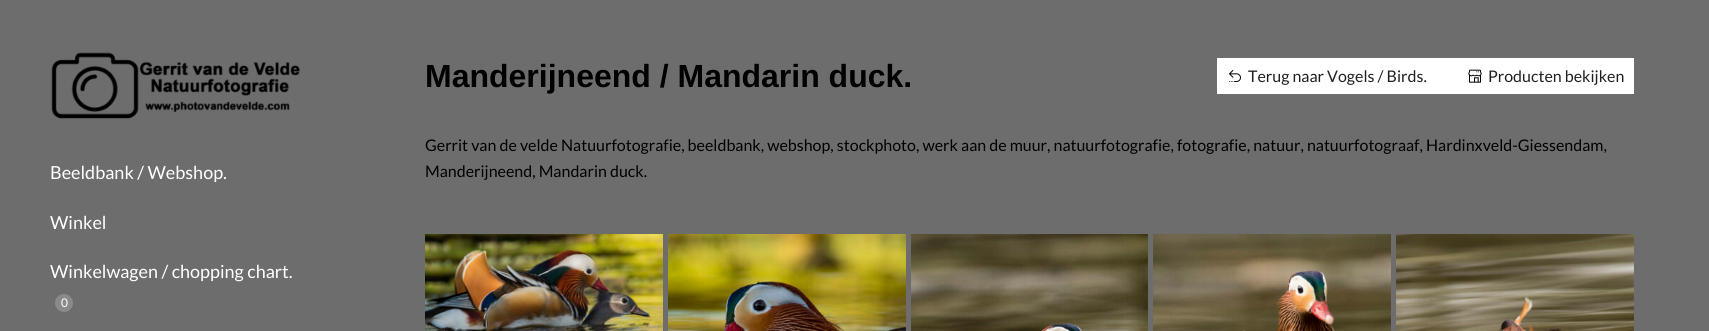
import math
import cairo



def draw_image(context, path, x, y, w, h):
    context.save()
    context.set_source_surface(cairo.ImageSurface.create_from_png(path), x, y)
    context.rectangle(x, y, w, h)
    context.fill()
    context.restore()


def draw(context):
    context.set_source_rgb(109 / 255, 109 / 255, 109 / 255)
    context.paint()
    context.set_source_rgb(1, 1, 1)
    context.rectangle(1217, 58, 417, 36)
    context.fill()
    draw_image(context, "images/1.png", 1229, 70, 12, 12)
    draw_image(context, "images/2.png", 1468, 69, 14, 14)
    draw_image(context, "images/3.png", 425, 234, 238, 97)
    draw_image(context, "images/4.png", 668, 234, 238, 97)
    draw_image(context, "images/5.png", 911, 234, 237, 97)
    draw_image(context, "images/6.png", 1153, 234, 238, 97)
    draw_image(context, "images/7.png", 1396, 234, 238, 97)
    draw_image(context, "images/8.png", 51, 52, 249, 67)
    context.set_source_rgb(138 / 255, 138 / 255, 138 / 255)
    context.arc(64, 303, 9, 0, 2 * math.pi)
    context.fill()
    context.select_font_face("Liberation Sans", cairo.FontSlant.NORMAL, cairo.FontWeight.BOLD)
    context.set_font_size(32)
    context.set_source_rgb(0, 0, 0)
    context.move_to(425, 87)
    context.show_text("Manderijneend / Mandarin duck.")
    context.select_font_face("Lato")
    context.set_font_size(16)
    context.set_source_rgb(31 / 255, 31 / 255, 31 / 255)
    context.move_to(1248, 82)
    context.show_text("Terug naar Vogels / Birds.")
    context.move_to(1488, 82)
    context.show_text("Producten bekijken")
    context.set_source_rgb(0, 0, 0)
    context.move_to(425, 151)
    context.show_text("Gerrit van de velde Natuurfotografie, beeldbank, webshop, stockphoto, werk aan de muur, natuurfotografie, fotografie, natuur, natuurfotograaf, Hardinxveld-Giessendam,")
    context.move_to(425, 177)
    context.show_text("Manderijneend, Mandarin duck.")
    context.set_font_size(18)
    context.set_source_rgb(1, 1, 1)
    context.move_to(50, 179)
    context.show_text("Beeldbank / Webshop.")
    context.move_to(50, 229)
    context.show_text("Winkel")
    context.move_to(50, 278)
    context.show_text("Winkelwagen / chopping chart.")
    context.set_font_size(12)
    context.move_to(61, 307)
    context.show_text("0")


surface = cairo.ImageSurface(cairo.Format.RGB24, 1709, 331)
context = cairo.Context(surface)
options = cairo.FontOptions()
options.set_hint_metrics(cairo.HintMetrics.OFF)
options.set_hint_style(cairo.HintStyle.NONE)
context.set_font_options(options)
context.set_miter_limit(4)
draw(context)
surface.write_to_png("out.png")
